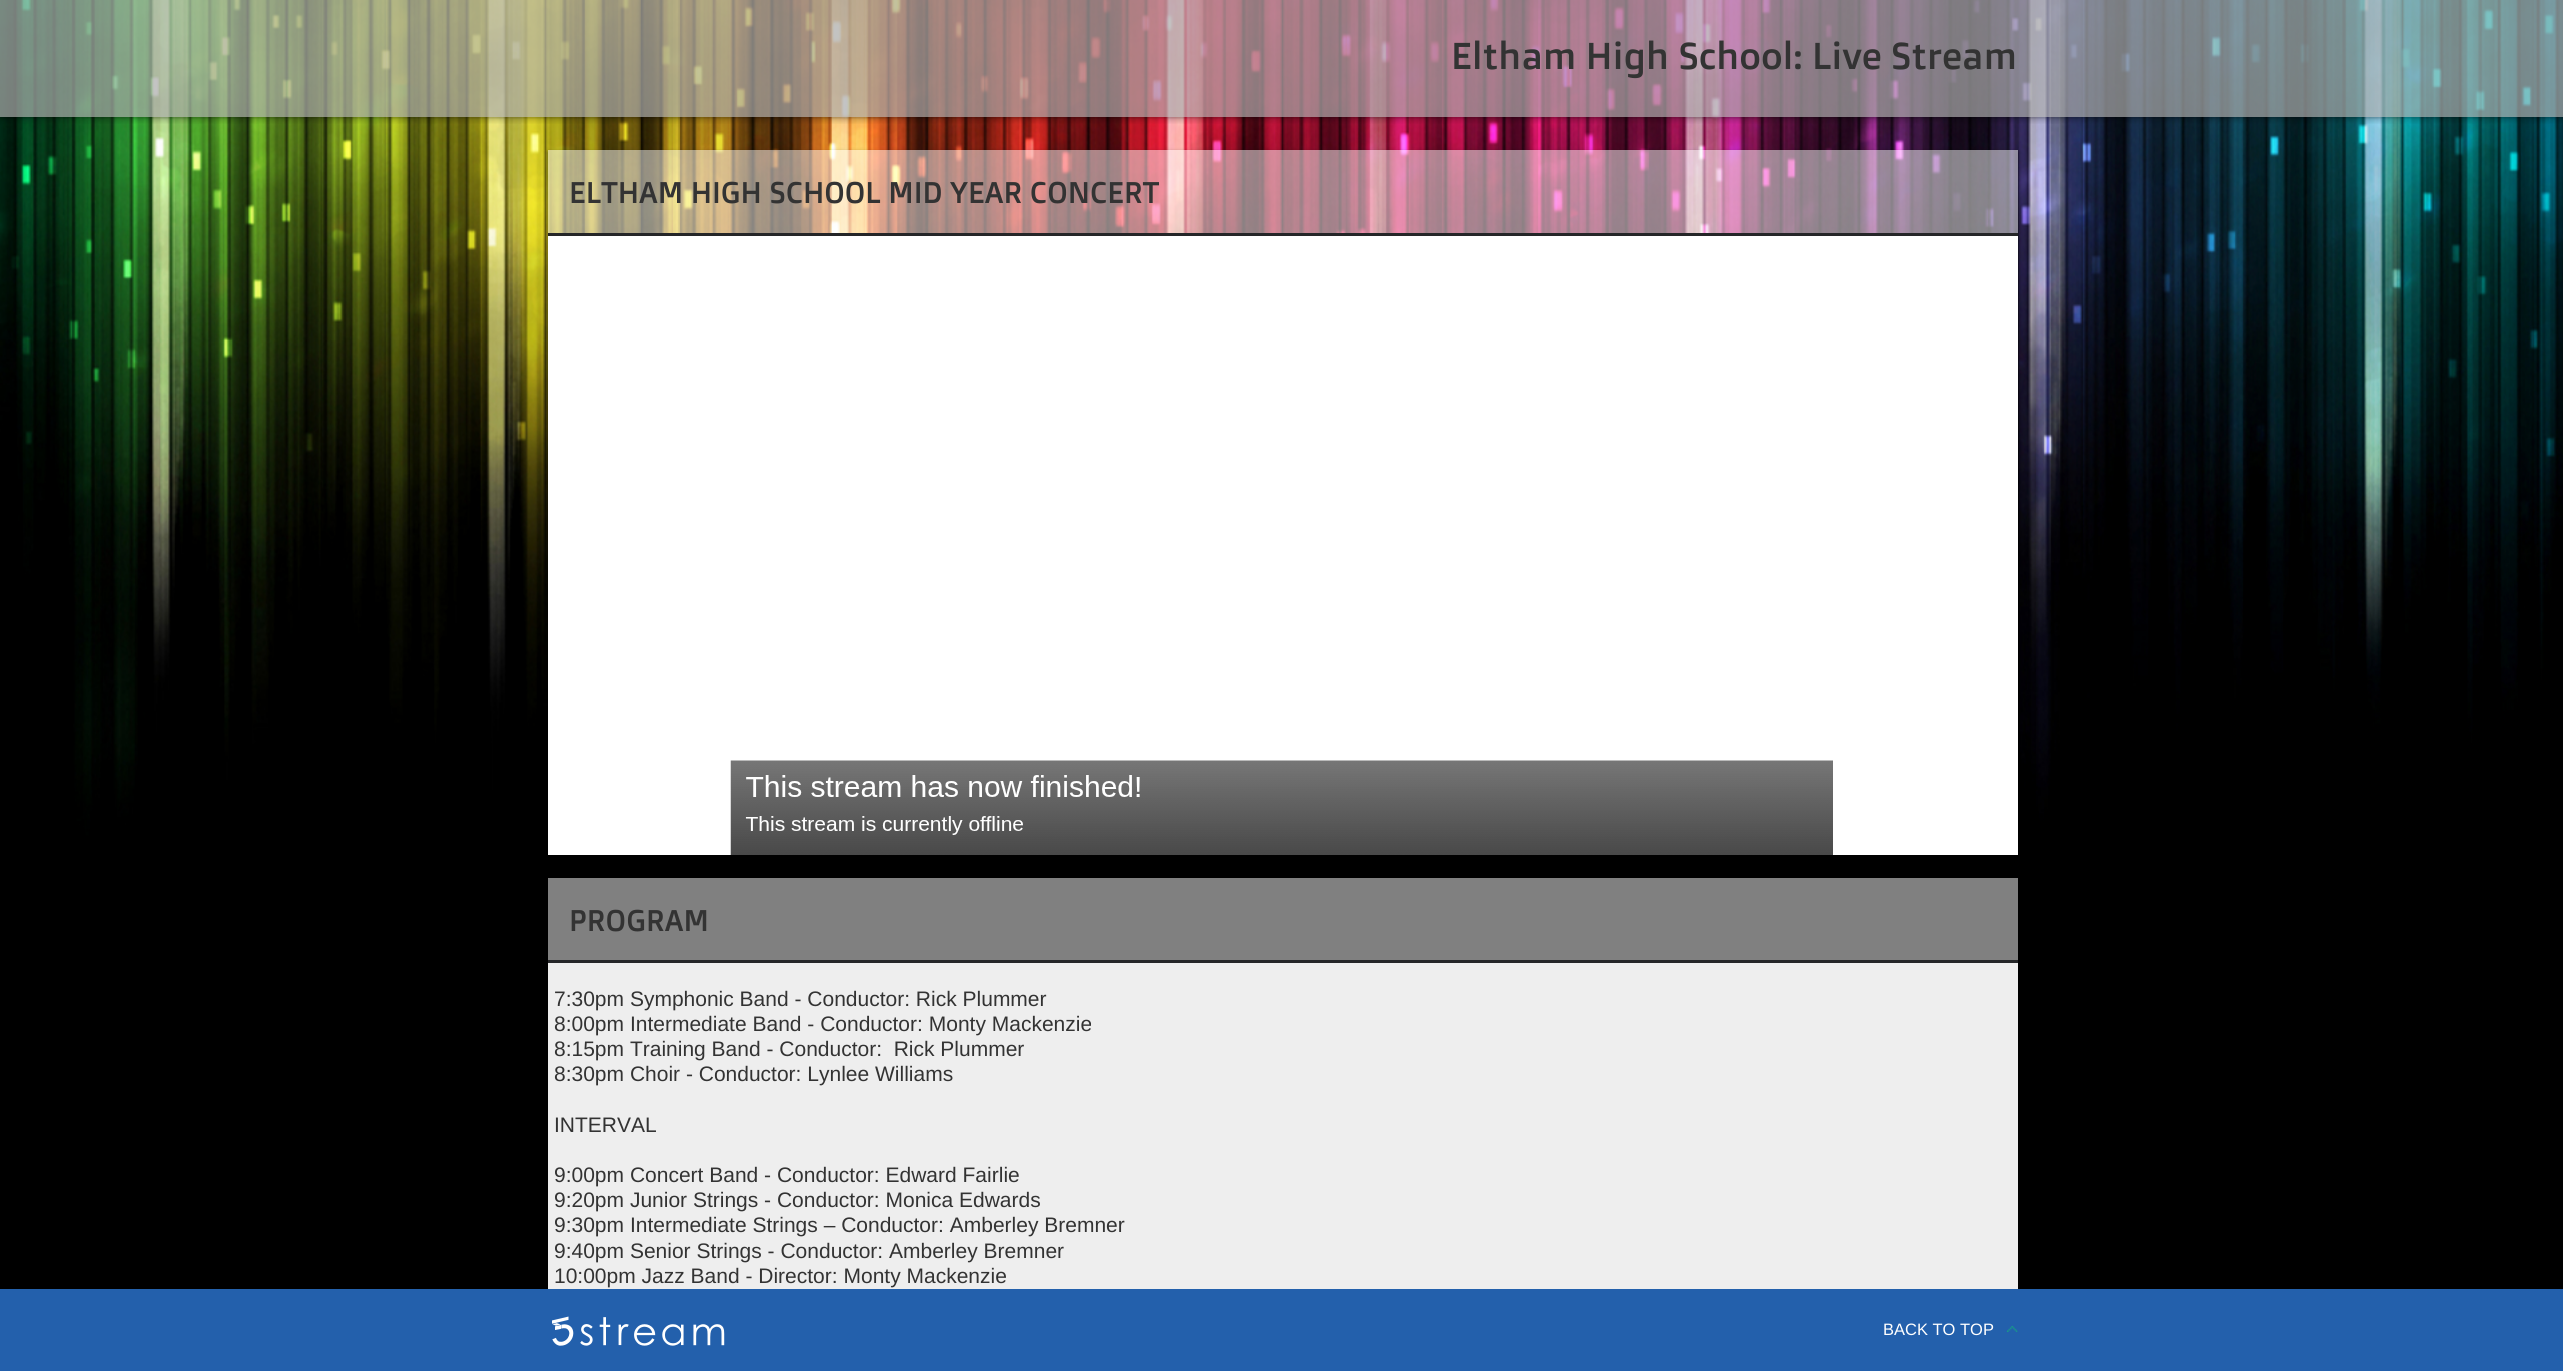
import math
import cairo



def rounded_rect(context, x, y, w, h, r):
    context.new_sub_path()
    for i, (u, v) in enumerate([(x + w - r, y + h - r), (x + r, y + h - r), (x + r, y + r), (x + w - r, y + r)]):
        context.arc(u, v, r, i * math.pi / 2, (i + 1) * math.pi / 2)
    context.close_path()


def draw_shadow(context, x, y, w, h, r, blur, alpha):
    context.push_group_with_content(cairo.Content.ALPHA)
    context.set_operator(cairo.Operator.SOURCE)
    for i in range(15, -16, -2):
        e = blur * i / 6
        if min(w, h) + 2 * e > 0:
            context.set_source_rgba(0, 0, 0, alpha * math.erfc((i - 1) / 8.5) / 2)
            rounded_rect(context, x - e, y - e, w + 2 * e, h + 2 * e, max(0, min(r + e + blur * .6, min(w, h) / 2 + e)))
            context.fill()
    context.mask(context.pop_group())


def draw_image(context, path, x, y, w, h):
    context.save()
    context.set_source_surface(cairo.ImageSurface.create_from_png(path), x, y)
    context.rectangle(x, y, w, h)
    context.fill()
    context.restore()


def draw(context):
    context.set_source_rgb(1, 1, 1)
    context.paint()
    draw_image(context, "images/1.png", 0, 0, 2563, 1289)
    context.save()
    context.rectangle(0, 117, 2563, 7)
    context.clip()
    context.set_source_rgb(0, 0, 0)
    draw_shadow(context, 2, 0, 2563, 117, 0, 4, 0.6)
    context.restore()
    context.set_source_rgba(172 / 255, 172 / 255, 172 / 255, 0.7)
    context.rectangle(0, 0, 2563, 117)
    context.fill()
    context.save()
    context.set_fill_rule(cairo.FillRule.EVEN_ODD)
    context.new_path()
    context.move_to(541, 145)
    context.line_to(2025, 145)
    context.line_to(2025, 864)
    context.line_to(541, 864)
    context.close_path()
    context.move_to(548, 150)
    context.line_to(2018, 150)
    context.line_to(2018, 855)
    context.line_to(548, 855)
    context.close_path()
    context.clip()
    context.set_source_rgb(0, 0, 0)
    draw_shadow(context, 548, 152, 1470, 705, 0, 2, 0.5)
    context.restore()
    context.set_source_rgba(1, 1, 1, 0.5)
    context.rectangle(548, 150, 1470, 83)
    context.fill()
    context.set_source_rgb(37 / 255, 38 / 255, 40 / 255)
    context.rectangle(548, 233, 1470, 3)
    context.fill()
    context.set_source_rgb(1, 1, 1)
    context.rectangle(548, 236, 1470, 619)
    context.fill()
    draw_image(context, "images/2.png", 730, 760, 1103, 95)
    context.set_source_rgb(128 / 255, 128 / 255, 128 / 255)
    context.rectangle(548, 878, 1470, 82)
    context.fill()
    context.set_source_rgb(37 / 255, 38 / 255, 40 / 255)
    context.rectangle(548, 960, 1470, 3)
    context.fill()
    context.set_source_rgb(238 / 255, 238 / 255, 238 / 255)
    context.rectangle(548, 963, 1470, 326)
    context.fill()
    context.set_source_rgb(35 / 255, 96 / 255, 172 / 255)
    context.rectangle(0, 1289, 2563, 82)
    context.fill()
    draw_image(context, "images/3.png", 552, 1316, 173, 30)
    draw_image(context, "images/4.png", 2007, 1326, 11, 6)
    context.select_font_face("Doppio One")
    context.set_font_size(37.5)
    context.set_source_rgb(51 / 255, 51 / 255, 51 / 255)
    context.move_to(1451, 69)
    context.show_text("Eltham High School: Live Stream")
    context.set_font_size(30)
    context.move_to(569, 203)
    context.show_text("ELTHAM HIGH SCHOOL MID YEAR CONCERT")
    context.move_to(569, 931)
    context.show_text("PROGRAM")
    context.select_font_face("Liberation Sans")
    context.set_font_size(21)
    context.move_to(554, 1006)
    context.show_text("7:30pm Symphonic Band - Conductor: Rick Plummer")
    context.move_to(554, 1031)
    context.show_text("8:00pm Intermediate Band - Conductor: Monty Mackenzie")
    context.move_to(554, 1056)
    context.show_text("8:15pm Training Band - Conductor:  Rick Plummer")
    context.move_to(554, 1081)
    context.show_text("8:30pm Choir - Conductor: Lynlee Williams")
    context.move_to(554, 1132)
    context.show_text("INTERVAL")
    context.move_to(554, 1182)
    context.show_text("9:00pm Concert Band - Conductor: Edward Fairlie")
    context.move_to(554, 1207)
    context.show_text("9:20pm Junior Strings - Conductor: Monica Edwards")
    context.move_to(554, 1232)
    context.show_text("9:30pm Intermediate Strings – Conductor: Amberley Bremner")
    context.move_to(554, 1258)
    context.show_text("9:40pm Senior Strings - Conductor: Amberley Bremner")
    context.move_to(554, 1283)
    context.show_text("10:00pm Jazz Band - Director: Monty Mackenzie")
    context.set_font_size(16.5)
    context.set_source_rgb(1, 1, 1)
    context.move_to(1883, 1335)
    context.show_text("BACK TO TOP")


surface = cairo.ImageSurface(cairo.Format.RGB24, 2563, 1371)
context = cairo.Context(surface)
options = cairo.FontOptions()
options.set_hint_metrics(cairo.HintMetrics.OFF)
options.set_hint_style(cairo.HintStyle.NONE)
context.set_font_options(options)
context.set_miter_limit(4)
draw(context)
surface.write_to_png("out.png")
